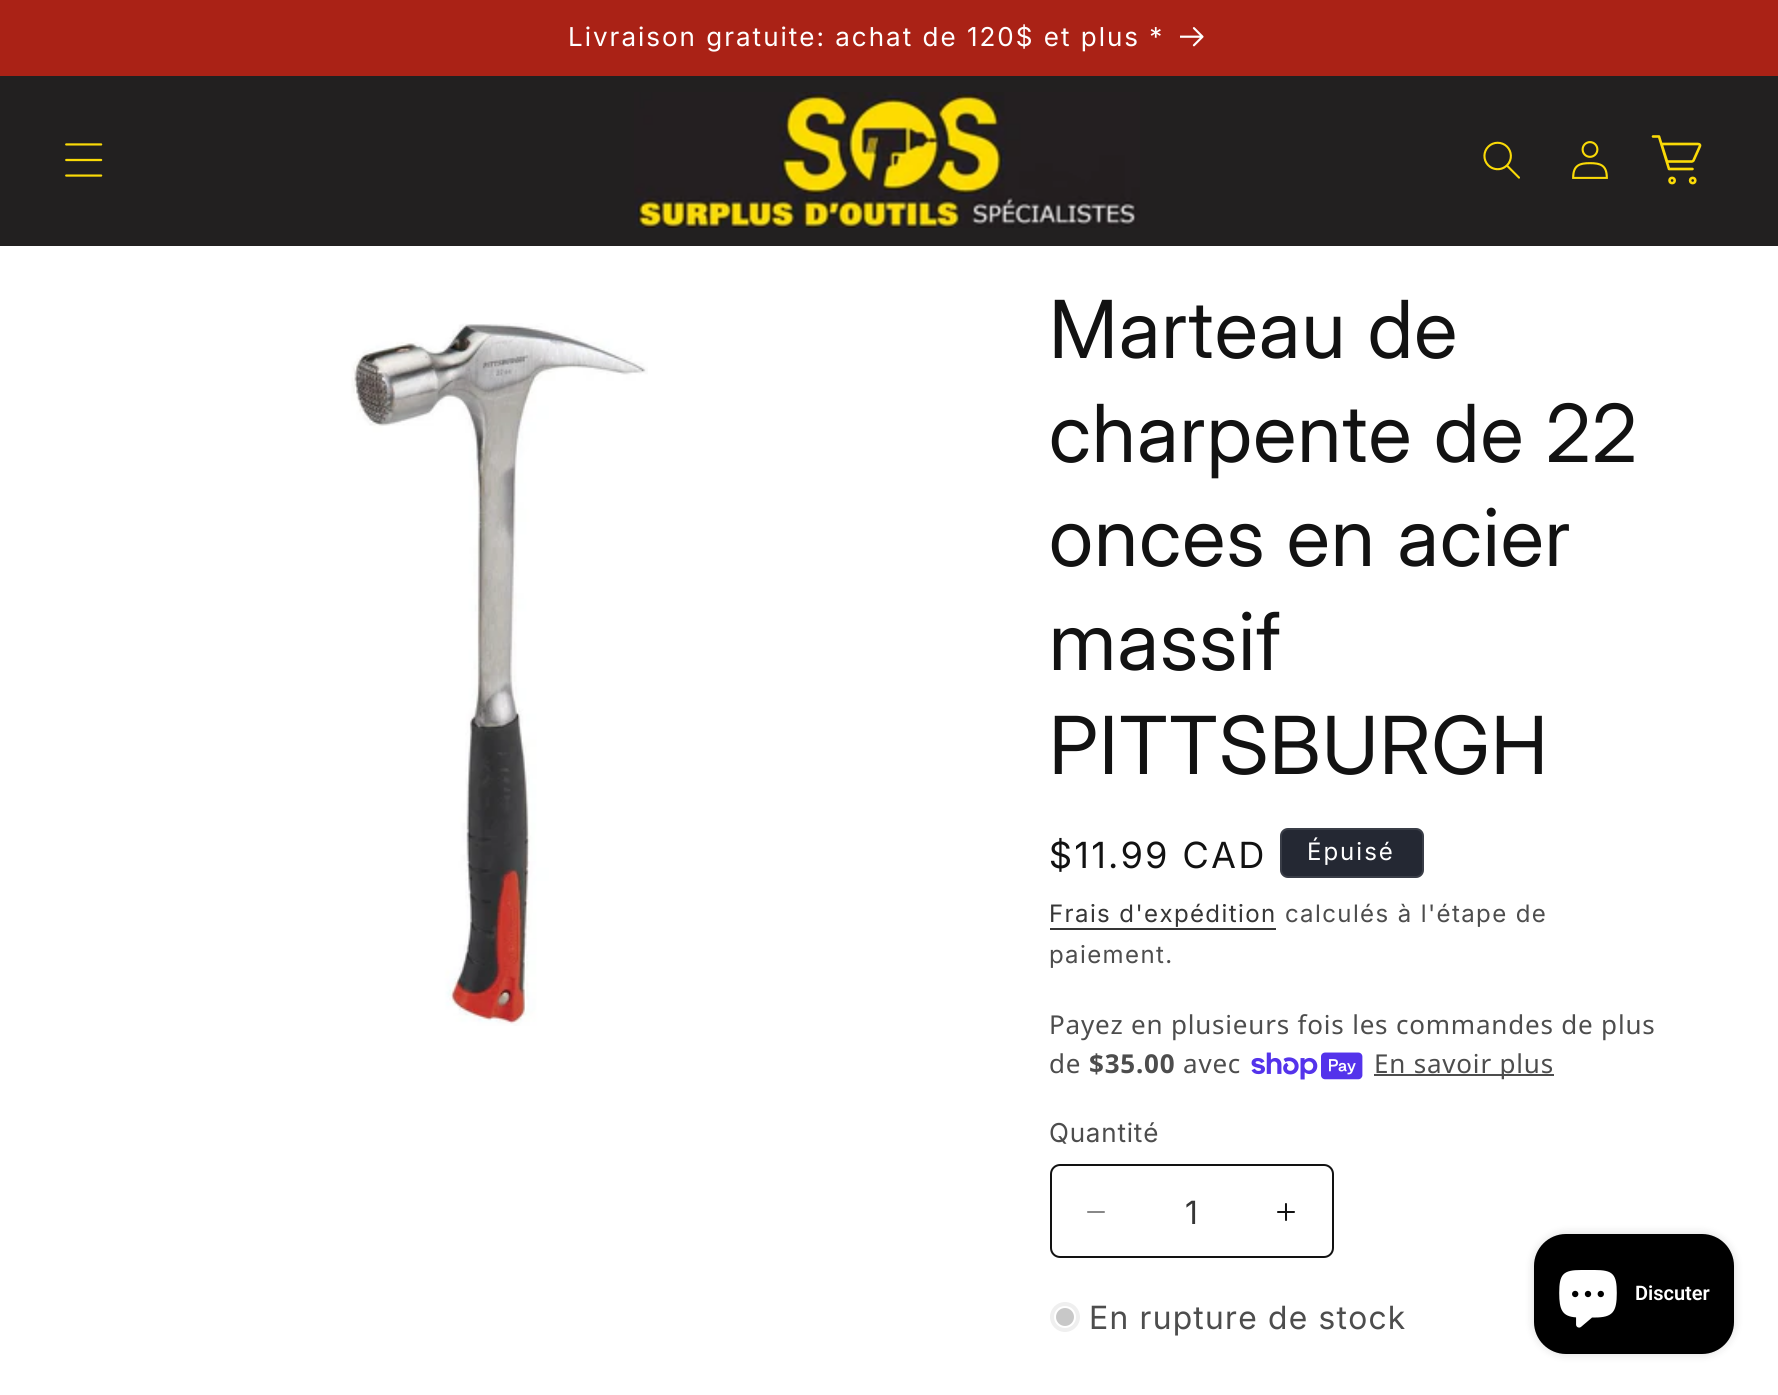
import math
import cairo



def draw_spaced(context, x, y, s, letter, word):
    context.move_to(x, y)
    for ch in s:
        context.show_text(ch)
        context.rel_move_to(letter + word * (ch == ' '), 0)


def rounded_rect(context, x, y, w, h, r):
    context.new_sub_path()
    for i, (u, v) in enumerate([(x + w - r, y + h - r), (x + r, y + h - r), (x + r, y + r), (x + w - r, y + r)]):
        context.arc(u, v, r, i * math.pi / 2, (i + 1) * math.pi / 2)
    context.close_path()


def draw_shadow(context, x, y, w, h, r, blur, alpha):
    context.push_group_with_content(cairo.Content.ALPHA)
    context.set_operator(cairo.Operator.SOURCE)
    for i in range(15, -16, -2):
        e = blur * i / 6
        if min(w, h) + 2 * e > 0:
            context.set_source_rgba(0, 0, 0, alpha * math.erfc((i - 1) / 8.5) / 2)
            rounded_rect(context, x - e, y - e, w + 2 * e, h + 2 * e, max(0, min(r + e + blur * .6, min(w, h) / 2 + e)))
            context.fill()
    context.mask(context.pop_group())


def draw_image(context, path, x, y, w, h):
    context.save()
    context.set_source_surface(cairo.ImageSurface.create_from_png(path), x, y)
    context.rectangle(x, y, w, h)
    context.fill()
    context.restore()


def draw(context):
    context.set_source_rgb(1, 1, 1)
    context.paint()
    context.set_source_rgb(170 / 255, 34 / 255, 22 / 255)
    context.rectangle(0, 0, 1778, 76)
    context.fill()
    draw_image(context, "images/1.png", 1180, 27, 24, 20)
    context.set_source_rgb(34 / 255, 32 / 255, 32 / 255)
    context.rectangle(0, 76, 1778, 170)
    context.fill()
    draw_image(context, "images/2.png", 65, 143, 38, 34)
    draw_image(context, "images/3.png", 634, 92, 506, 136)
    draw_image(context, "images/4.png", 1483, 141, 37, 38)
    draw_image(context, "images/5.png", 1572, 141, 36, 38)
    context.arc(1672.1, 180.5, 2.6, 0, 2 * math.pi)
    context.set_source_rgb(250 / 255, 218 / 255, 7 / 255)
    context.set_line_width(2.6)
    context.stroke()
    context.arc(1692.7, 180.5, 2.6, 0, 2 * math.pi)
    context.stroke()
    context.new_path()
    context.move_to(1653, 136.5)
    context.line_to(1659, 136.5)
    context.line_to(1669, 169)
    context.line_to(1692.5, 169)
    context.move_to(1667, 161.5)
    context.line_to(1661.5, 144)
    context.line_to(1698, 144)
    context.curve_to(1699.5, 144, 1700.5, 145, 1700, 146)
    context.line_to(1693.5, 160.5)
    context.curve_to(1693, 161, 1692.5, 161.5, 1692, 161.5)
    context.close_path()
    context.set_line_cap(cairo.LineCap.ROUND)
    context.set_line_join(cairo.LineJoin.ROUND)
    context.stroke()
    draw_image(context, "images/6.png", 351, 323, 297, 703)
    context.set_source_rgb(36 / 255, 40 / 255, 51 / 255)
    rounded_rect(context, 1280, 828, 144, 50, 8)
    context.fill()
    rounded_rect(context, 1281, 829, 142, 48, 7)
    context.set_source_rgba(1, 1, 1, 0.1)
    context.set_line_width(2)
    context.set_line_cap(cairo.LineCap.BUTT)
    context.set_line_join(cairo.LineJoin.MITER)
    context.stroke()
    context.set_source_rgb(54 / 255, 54 / 255, 54 / 255)
    context.rectangle(1050, 928, 226, 2)
    context.fill()
    draw_image(context, "images/7.png", 1251, 1052, 112, 28)
    context.set_source_rgb(77 / 255, 77 / 255, 77 / 255)
    context.rectangle(1374, 1074, 180, 2)
    context.fill()
    draw_image(context, "images/8.png", 1087, 1211, 18, 2)
    draw_image(context, "images/9.png", 1277, 1203, 18, 18)
    rounded_rect(context, 1051, 1165, 282, 92, 9)
    context.set_source_rgb(18 / 255, 18 / 255, 18 / 255)
    context.stroke()
    context.set_source_rgb(239 / 255, 239 / 255, 239 / 255)
    context.arc(1065, 1317, 15, 0, 2 * math.pi)
    context.fill()
    context.set_source_rgb(200 / 255, 200 / 255, 200 / 255)
    context.arc(1065, 1317, 10, 0, 2 * math.pi)
    context.fill_preserve()
    context.set_source_rgb(1, 1, 1)
    context.stroke()
    context.set_source_rgb(0, 0, 0)
    draw_shadow(context, 1534, 1234, 200, 120, 32, 5, 0.15)
    context.set_source_rgb(0, 0, 0)
    rounded_rect(context, 1534, 1234, 200, 120, 32)
    context.fill()
    draw_image(context, "images/10.png", 1559, 1270, 58, 58)
    context.select_font_face("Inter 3")
    context.set_font_size(26)
    context.set_source_rgb(1, 1, 1)
    draw_spaced(context, 568, 46, "Livraison gratuite: achat de 120$ et plus *", 2, 0)
    context.select_font_face("Inter")
    context.set_font_size(80)
    context.set_source_rgb(18 / 255, 18 / 255, 18 / 255)
    draw_spaced(context, 1049, 358, "Marteau de", 1.25, 0)
    draw_spaced(context, 1049, 462, "charpente de 22", 1.25, 0)
    draw_spaced(context, 1049, 566, "onces en acier", 1.25, 0)
    draw_spaced(context, 1049, 670, "massif", 1.25, 0)
    draw_spaced(context, 1049, 774, "PITTSBURGH", 1.25, 0)
    context.select_font_face("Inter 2")
    context.set_font_size(36)
    draw_spaced(context, 1049, 868, "$11.99 CAD", 2.6, 0)
    context.select_font_face("Inter 3")
    context.set_font_size(24)
    context.set_source_rgb(1, 1, 1)
    draw_spaced(context, 1307, 860, "Épuisé", 2, 0)
    context.set_source_rgb(54 / 255, 54 / 255, 54 / 255)
    draw_spaced(context, 1049, 922, "Frais d'expédition", 1.4, 0)
    context.set_source_rgb(77 / 255, 77 / 255, 77 / 255)
    draw_spaced(context, 1285, 922, "calculés à l'étape de", 1.4, 0)
    draw_spaced(context, 1049, 963, "paiement.", 1.4, 0)
    context.select_font_face("Noto Sans")
    context.set_font_size(26)
    draw_spaced(context, 1049, 1034, "Payez en plusieurs fois les commandes de plus", 0.8, 0)
    draw_spaced(context, 1049, 1073, "de", 0.8, 0)
    context.select_font_face("Noto Sans", cairo.FontSlant.NORMAL, cairo.FontWeight.BOLD)
    draw_spaced(context, 1089, 1073, "$35.00", 0.8, 0)
    context.select_font_face("Noto Sans")
    draw_spaced(context, 1183, 1073, "avec", 0.8, 0)
    draw_spaced(context, 1374, 1073, "En savoir plus", 0.8, 0)
    context.select_font_face("Inter 3")
    draw_spaced(context, 1049, 1142, "Quantité", 0.8, 0)
    context.select_font_face("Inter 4")
    context.set_font_size(32)
    context.set_source_rgb(54 / 255, 54 / 255, 54 / 255)
    context.move_to(1185, 1224)
    context.show_text("1")
    context.set_source_rgb(77 / 255, 77 / 255, 77 / 255)
    draw_spaced(context, 1089, 1329, "En rupture de stock", 1.25, 0)
    context.select_font_face("Roboto SemiBold")
    context.set_font_size(20)
    context.set_source_rgb(1, 1, 1)
    context.move_to(1635, 1300)
    context.show_text("Discuter")


surface = cairo.ImageSurface(cairo.Format.RGB24, 1778, 1395)
context = cairo.Context(surface)
options = cairo.FontOptions()
options.set_hint_metrics(cairo.HintMetrics.OFF)
options.set_hint_style(cairo.HintStyle.NONE)
context.set_font_options(options)
context.set_miter_limit(4)
draw(context)
surface.write_to_png("out.png")
